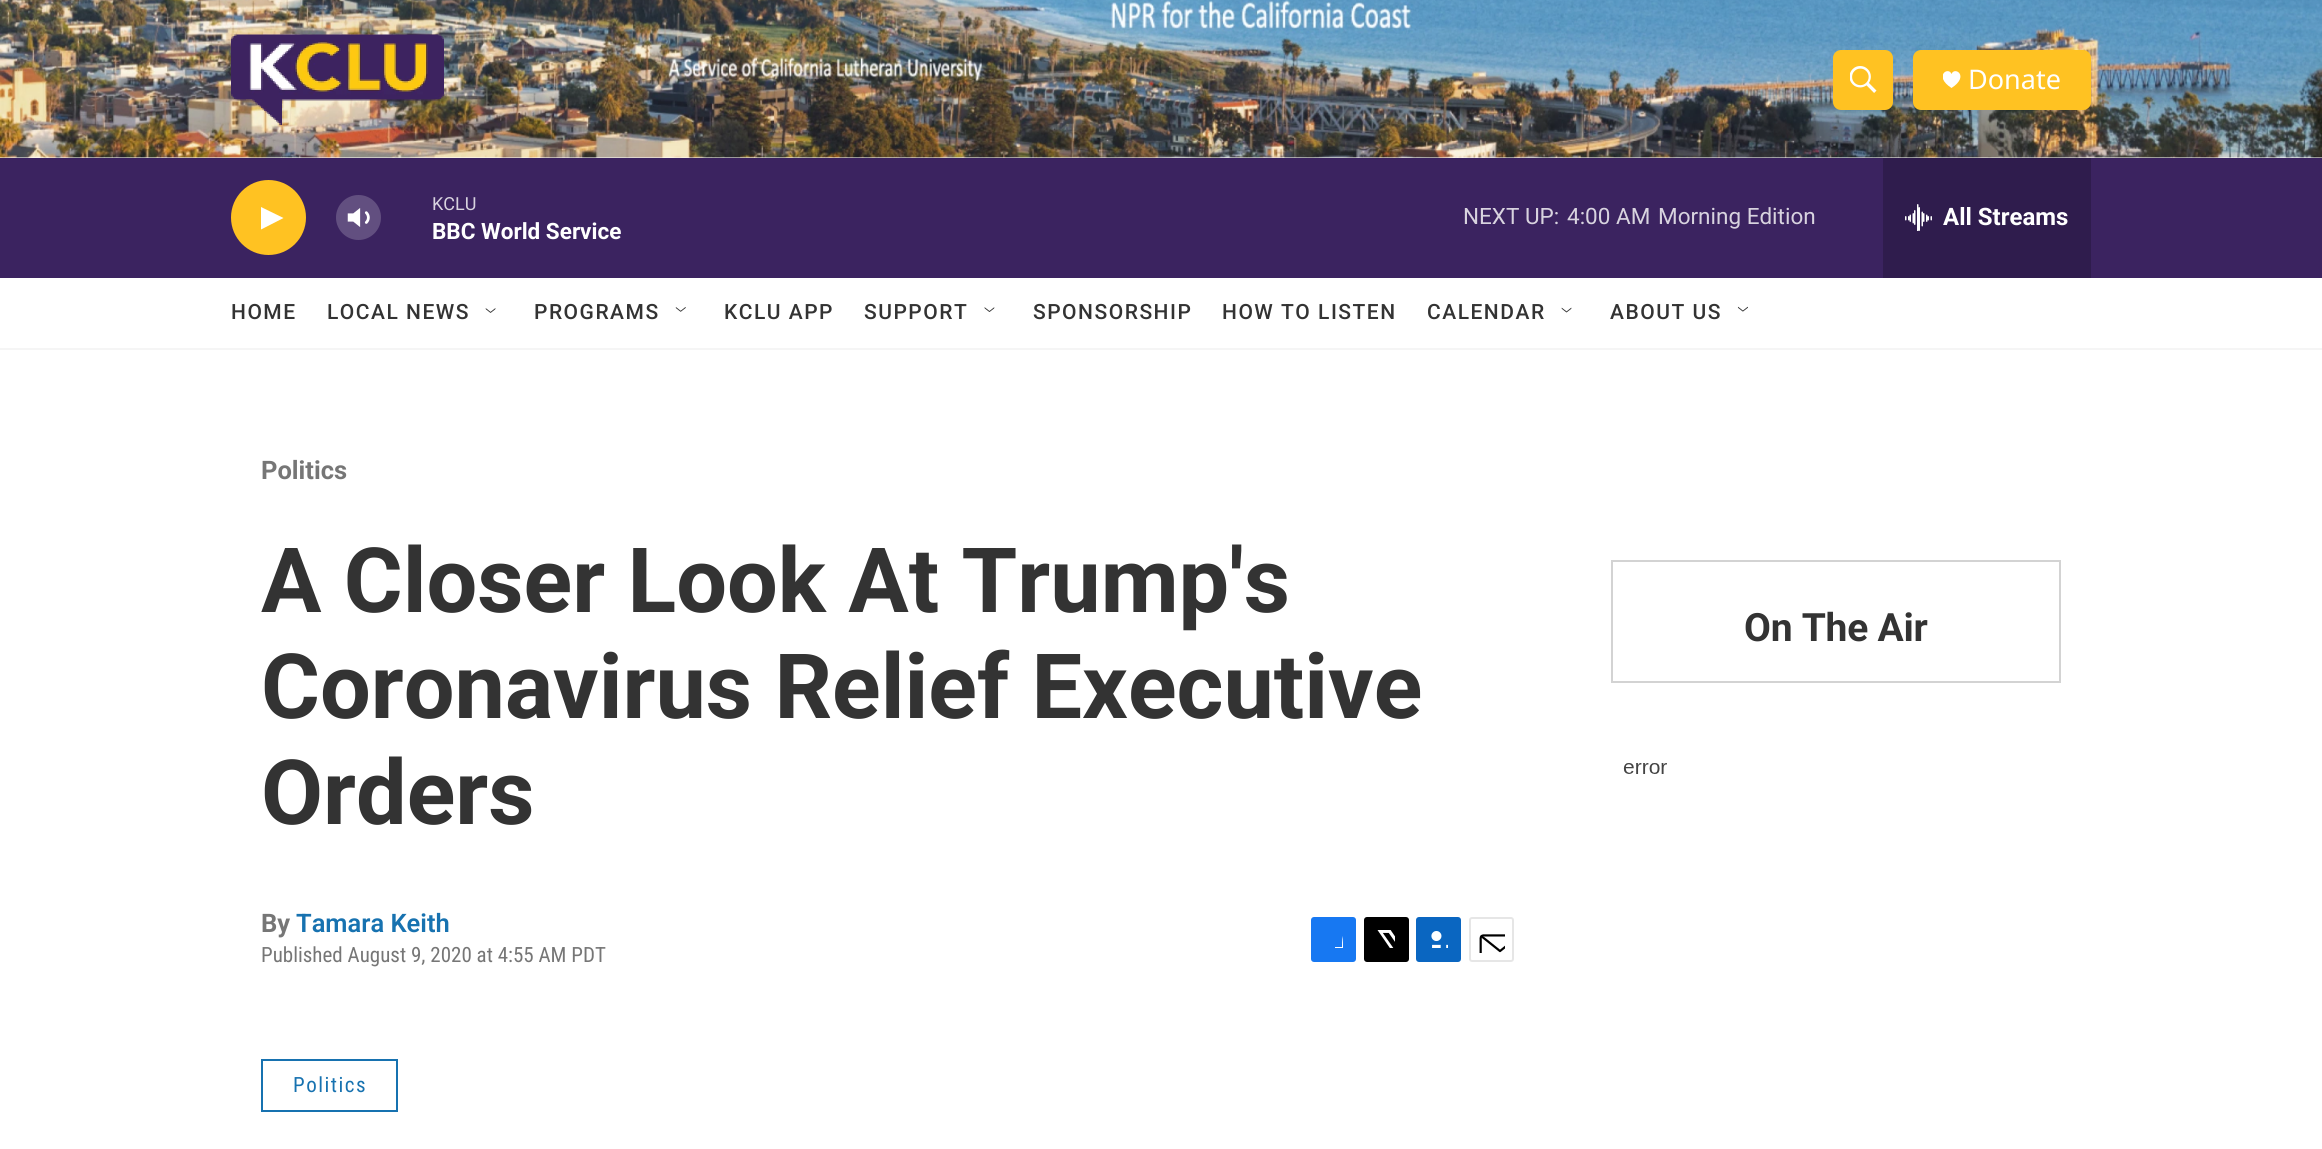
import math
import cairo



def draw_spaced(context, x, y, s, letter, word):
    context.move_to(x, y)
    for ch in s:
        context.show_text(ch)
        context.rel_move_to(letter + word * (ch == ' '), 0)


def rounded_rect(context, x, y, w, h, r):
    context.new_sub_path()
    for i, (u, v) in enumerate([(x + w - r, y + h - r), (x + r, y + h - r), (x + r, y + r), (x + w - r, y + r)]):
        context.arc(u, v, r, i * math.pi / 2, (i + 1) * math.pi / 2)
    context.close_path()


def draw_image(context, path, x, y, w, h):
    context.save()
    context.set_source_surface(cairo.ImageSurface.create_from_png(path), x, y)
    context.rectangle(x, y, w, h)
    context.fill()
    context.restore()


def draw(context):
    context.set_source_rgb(1, 1, 1)
    context.paint()
    context.set_source_rgb(245 / 255, 245 / 255, 245 / 255)
    context.rectangle(0, 348, 2322, 2)
    context.fill()
    draw_image(context, "images/1.png", 0, 0, 2322, 158)
    draw_image(context, "images/2.png", 231, 34, 213, 91)
    context.set_source_rgb(1, 194 / 255, 34 / 255)
    rounded_rect(context, 1833, 50, 60, 60, 8)
    context.fill()
    draw_image(context, "images/3.png", 1850, 66, 27, 27)
    rounded_rect(context, 1913, 50, 178, 60, 8)
    context.fill()
    context.save()
    context.rectangle(1943, 71, 18, 18)
    context.clip()
    context.set_source_rgb(1, 1, 1)
    context.new_path()
    context.move_to(1951.5, 74)
    context.curve_to(1948.5, 66, 1933, 76, 1951.5, 88)
    context.curve_to(1970, 76, 1954.5, 66, 1951.5, 74)
    context.close_path()
    context.fill()
    context.restore()
    context.set_source_rgb(59 / 255, 35 / 255, 96 / 255)
    context.rectangle(0, 158, 2322, 120)
    context.fill()
    context.set_source_rgb(1, 194 / 255, 34 / 255)
    context.arc(268.5, 217.5, 37.5, 0, 2 * math.pi)
    context.fill()
    context.set_source_rgb(1, 1, 1)
    context.new_path()
    context.move_to(261, 207)
    context.line_to(283.5, 218)
    context.line_to(261, 229.5)
    context.close_path()
    context.fill()
    draw_image(context, "images/4.png", 347, 208, 23, 19)
    context.set_source_rgba(1, 1, 1, 0.2)
    context.arc(358.5, 217.5, 22.5, 0, 2 * math.pi)
    context.fill()
    context.set_source_rgb(47 / 255, 28 / 255, 77 / 255)
    context.rectangle(1883, 158, 208, 120)
    context.fill()
    draw_image(context, "images/5.png", 1905, 204, 27, 27)
    draw_image(context, "images/6.png", 485, 308, 11, 5)
    draw_image(context, "images/7.png", 675, 307, 11, 5)
    draw_image(context, "images/8.png", 984, 307, 11, 5)
    draw_image(context, "images/9.png", 1561, 307, 11, 6)
    draw_image(context, "images/10.png", 1737, 306, 11, 6)
    context.set_source_rgb(23 / 255, 120 / 255, 242 / 255)
    rounded_rect(context, 1311, 917, 45, 45, 3)
    context.fill()
    context.save()
    context.rectangle(1325, 930, 18, 18)
    context.clip()
    context.set_source_rgb(1, 1, 1)
    context.new_path()
    context.move_to(1349, 962)
    context.line_to(1342, 962)
    context.line_to(1342, 954)
    context.line_to(1335, 954)
    context.line_to(1335, 947)
    context.line_to(1342, 947)
    context.curve_to(1342, 934.5, 1343, 929, 1356, 931)
    context.line_to(1356, 938)
    context.curve_to(1347.5, 938, 1349, 939.5, 1349, 947)
    context.line_to(1356, 947)
    context.line_to(1355, 954)
    context.line_to(1349, 954)
    context.close_path()
    context.fill()
    context.restore()
    context.set_source_rgb(0, 0, 0)
    rounded_rect(context, 1364, 917, 45, 45, 3)
    context.fill()
    draw_image(context, "images/11.png", 1377, 930, 18, 18)
    context.set_source_rgb(10 / 255, 102 / 255, 193 / 255)
    rounded_rect(context, 1416, 917, 45, 45, 3)
    context.fill()
    draw_image(context, "images/12.png", 1431, 931, 17, 17)
    rounded_rect(context, 1470, 918, 43, 43, 2)
    context.set_source_rgb(230 / 255, 230 / 255, 230 / 255)
    context.stroke()
    draw_image(context, "images/13.png", 1479, 934, 26, 19)
    context.rectangle(262, 1060, 135, 51)
    context.set_source_rgb(23 / 255, 114 / 255, 176 / 255)
    context.stroke()
    context.rectangle(1612, 561, 448, 121)
    context.set_source_rgb(211 / 255, 211 / 255, 211 / 255)
    context.stroke()
    draw_image(context, "images/14.png", 1623, 763, 44, 11)
    context.select_font_face("Noto Sans")
    context.set_font_size(27)
    context.set_source_rgb(1, 1, 1)
    context.move_to(1968, 89)
    context.show_text("Donate")
    context.select_font_face("Roboto")
    context.set_font_size(18)
    context.set_source_rgb(216 / 255, 211 / 255, 223 / 255)
    context.move_to(432, 210)
    context.show_text("KCLU")
    context.select_font_face("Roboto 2", cairo.FontSlant.NORMAL, cairo.FontWeight.BOLD)
    context.set_font_size(22.5)
    context.set_source_rgb(1, 1, 1)
    context.move_to(432, 239)
    context.show_text("BBC World Service")
    context.select_font_face("Roboto")
    context.set_source_rgb(216 / 255, 211 / 255, 223 / 255)
    context.move_to(1463, 224)
    context.show_text("NEXT UP:")
    context.move_to(1567, 224)
    context.show_text("4:00 AM")
    context.move_to(1658, 224)
    context.show_text("Morning Edition")
    context.select_font_face("Roboto 2", cairo.FontSlant.NORMAL, cairo.FontWeight.BOLD)
    context.set_font_size(24)
    context.set_source_rgb(1, 1, 1)
    context.move_to(1943, 225)
    context.show_text("All Streams")
    context.select_font_face("Roboto Medium")
    context.set_font_size(21)
    context.set_source_rgb(51 / 255, 51 / 255, 51 / 255)
    draw_spaced(context, 231, 319, "HOME", 1.5, 0)
    draw_spaced(context, 327, 319, "LOCAL NEWS", 1.5, 0)
    draw_spaced(context, 534, 319, "PROGRAMS", 1.5, 0)
    draw_spaced(context, 724, 319, "KCLU APP", 1.5, 0)
    draw_spaced(context, 864, 319, "SUPPORT", 1.5, 0)
    draw_spaced(context, 1033, 319, "SPONSORSHIP", 1.5, 0)
    draw_spaced(context, 1222, 319, "HOW TO LISTEN", 1.5, 0)
    draw_spaced(context, 1427, 319, "CALENDAR", 1.5, 0)
    draw_spaced(context, 1610, 319, "ABOUT US", 1.5, 0)
    context.select_font_face("Roboto", cairo.FontSlant.NORMAL, cairo.FontWeight.BOLD)
    context.set_font_size(25.5)
    context.set_source_rgb(118 / 255, 118 / 255, 118 / 255)
    context.move_to(261, 479)
    context.show_text("Politics")
    context.set_font_size(90)
    context.set_source_rgb(51 / 255, 51 / 255, 51 / 255)
    context.move_to(261, 612)
    context.show_text("A Closer Look At Trump's")
    context.move_to(261, 718)
    context.show_text("Coronavirus Relief Executive")
    context.move_to(261, 824)
    context.show_text("Orders")
    context.set_font_size(25.5)
    context.set_source_rgb(118 / 255, 118 / 255, 118 / 255)
    context.move_to(261, 932)
    context.show_text("By")
    context.select_font_face("Roboto SemiBold")
    context.set_source_rgb(23 / 255, 114 / 255, 176 / 255)
    context.move_to(296, 932)
    context.show_text("Tamara Keith")
    context.select_font_face("Roboto Condensed")
    context.set_font_size(21)
    context.set_source_rgb(118 / 255, 118 / 255, 118 / 255)
    context.move_to(261, 962)
    context.show_text("Published August 9, 2020 at 4:55 AM PDT")
    context.set_source_rgb(23 / 255, 114 / 255, 176 / 255)
    draw_spaced(context, 293, 1092, "Politics", 1.5, 0)
    context.select_font_face("Roboto", cairo.FontSlant.NORMAL, cairo.FontWeight.BOLD)
    context.set_font_size(39)
    context.set_source_rgb(51 / 255, 51 / 255, 51 / 255)
    draw_spaced(context, 1744, 641, "On The Air", -0.25, 0)


surface = cairo.ImageSurface(cairo.Format.RGB24, 2322, 1149)
context = cairo.Context(surface)
options = cairo.FontOptions()
options.set_hint_metrics(cairo.HintMetrics.OFF)
options.set_hint_style(cairo.HintStyle.NONE)
context.set_font_options(options)
context.set_miter_limit(4)
draw(context)
surface.write_to_png("out.png")
